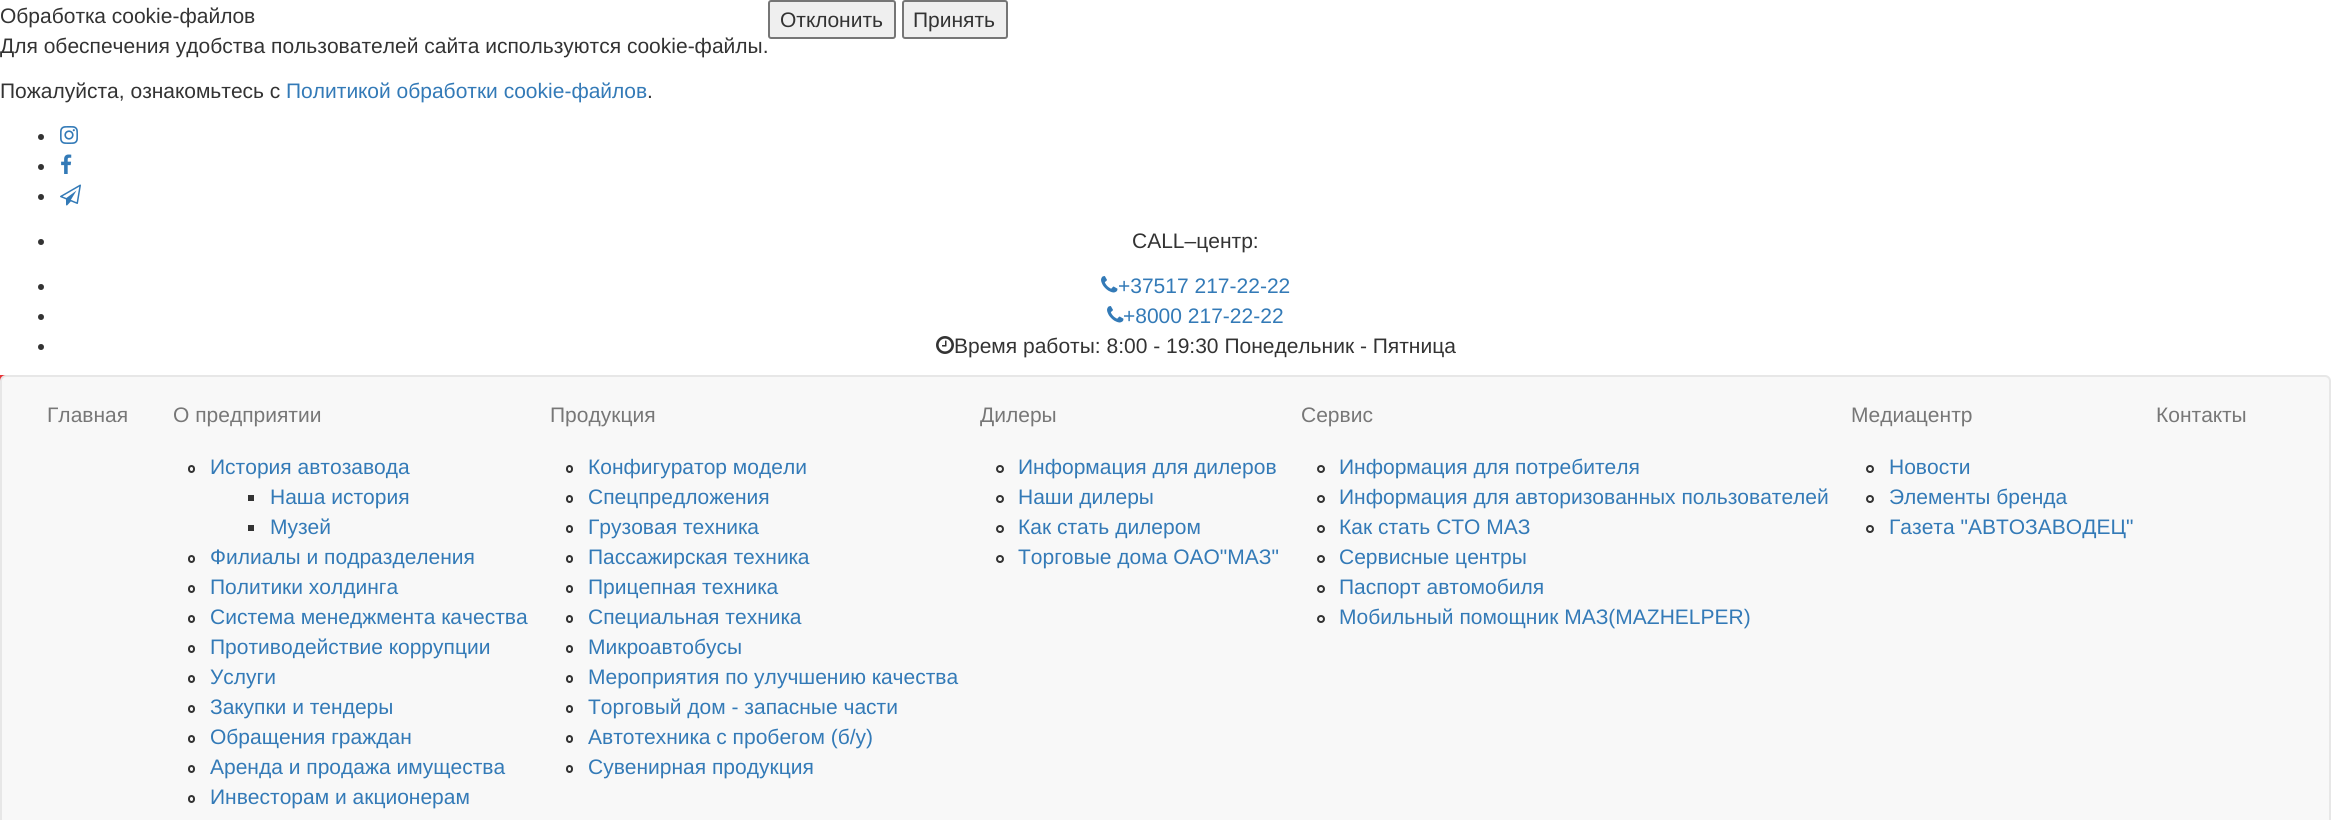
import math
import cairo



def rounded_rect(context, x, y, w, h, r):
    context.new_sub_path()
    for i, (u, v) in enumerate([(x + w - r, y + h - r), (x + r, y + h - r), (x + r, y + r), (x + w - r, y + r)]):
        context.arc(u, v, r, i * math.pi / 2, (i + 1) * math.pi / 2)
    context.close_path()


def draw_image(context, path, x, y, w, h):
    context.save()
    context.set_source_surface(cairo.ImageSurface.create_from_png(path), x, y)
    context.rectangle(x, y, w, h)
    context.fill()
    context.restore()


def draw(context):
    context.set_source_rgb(1, 1, 1)
    context.paint()
    context.set_source_rgb(239 / 255, 239 / 255, 239 / 255)
    rounded_rect(context, 769, 1, 126, 37, 2)
    context.fill_preserve()
    context.set_source_rgb(118 / 255, 118 / 255, 118 / 255)
    context.stroke()
    context.set_source_rgb(239 / 255, 239 / 255, 239 / 255)
    rounded_rect(context, 903, 1, 104, 37, 2)
    context.fill_preserve()
    context.set_source_rgb(118 / 255, 118 / 255, 118 / 255)
    context.stroke()
    context.set_source_rgb(51 / 255, 51 / 255, 51 / 255)
    context.arc(41, 137, 3, 0, 2 * math.pi)
    context.fill()
    draw_image(context, "images/1.png", 60, 126, 18, 18)
    context.arc(41, 167, 3, 0, 2 * math.pi)
    context.fill()
    draw_image(context, "images/2.png", 61, 154, 11, 20)
    context.arc(41, 197, 3, 0, 2 * math.pi)
    context.fill()
    draw_image(context, "images/3.png", 60, 184, 21, 22)
    context.arc(41, 242, 3, 0, 2 * math.pi)
    context.fill()
    context.arc(41, 287, 3, 0, 2 * math.pi)
    context.fill()
    draw_image(context, "images/4.png", 1101, 276, 17, 17)
    context.arc(41, 317, 3, 0, 2 * math.pi)
    context.fill()
    draw_image(context, "images/4.png", 1107, 306, 17, 17)
    context.arc(41, 347, 3, 0, 2 * math.pi)
    context.fill()
    draw_image(context, "images/5.png", 936, 336, 18, 18)
    draw_image(context, "images/6.png", 0, 375, 6, 6)
    context.set_source_rgb(248 / 255, 248 / 255, 248 / 255)
    rounded_rect(context, 1, 376, 2329, 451, 5)
    context.fill_preserve()
    context.set_source_rgb(231 / 255, 231 / 255, 231 / 255)
    context.stroke()
    rounded_rect(context, 189, 466, 5, 6, 2.5)
    context.set_source_rgb(51 / 255, 51 / 255, 51 / 255)
    context.stroke()
    context.rectangle(248, 495, 6, 6)
    context.fill()
    context.rectangle(248, 525, 6, 6)
    context.fill()
    rounded_rect(context, 189, 556, 5, 6, 2.5)
    context.stroke()
    rounded_rect(context, 189, 586, 5, 6, 2.5)
    context.stroke()
    rounded_rect(context, 189, 616, 5, 6, 2.5)
    context.stroke()
    rounded_rect(context, 189, 646, 5, 6, 2.5)
    context.stroke()
    rounded_rect(context, 189, 676, 5, 6, 2.5)
    context.stroke()
    rounded_rect(context, 189, 706, 5, 6, 2.5)
    context.stroke()
    rounded_rect(context, 189, 736, 5, 6, 2.5)
    context.stroke()
    rounded_rect(context, 189, 766, 5, 6, 2.5)
    context.stroke()
    rounded_rect(context, 189, 796, 5, 6, 2.5)
    context.stroke()
    rounded_rect(context, 567, 466, 5, 6, 2.5)
    context.stroke()
    rounded_rect(context, 567, 496, 5, 6, 2.5)
    context.stroke()
    rounded_rect(context, 567, 526, 5, 6, 2.5)
    context.stroke()
    rounded_rect(context, 567, 556, 5, 6, 2.5)
    context.stroke()
    rounded_rect(context, 567, 586, 5, 6, 2.5)
    context.stroke()
    rounded_rect(context, 567, 616, 5, 6, 2.5)
    context.stroke()
    rounded_rect(context, 567, 646, 5, 6, 2.5)
    context.stroke()
    rounded_rect(context, 567, 676, 5, 6, 2.5)
    context.stroke()
    rounded_rect(context, 567, 706, 5, 6, 2.5)
    context.stroke()
    rounded_rect(context, 567, 736, 5, 6, 2.5)
    context.stroke()
    rounded_rect(context, 567, 766, 5, 6, 2.5)
    context.stroke()
    context.arc(1000, 469, 3, 0, 2 * math.pi)
    context.stroke()
    context.arc(1000, 499, 3, 0, 2 * math.pi)
    context.stroke()
    context.arc(1000, 529, 3, 0, 2 * math.pi)
    context.stroke()
    context.arc(1000, 559, 3, 0, 2 * math.pi)
    context.stroke()
    context.arc(1321, 469, 3, 0, 2 * math.pi)
    context.stroke()
    context.arc(1321, 499, 3, 0, 2 * math.pi)
    context.stroke()
    context.arc(1321, 529, 3, 0, 2 * math.pi)
    context.stroke()
    context.arc(1321, 559, 3, 0, 2 * math.pi)
    context.stroke()
    context.arc(1321, 589, 3, 0, 2 * math.pi)
    context.stroke()
    context.arc(1321, 619, 3, 0, 2 * math.pi)
    context.stroke()
    context.arc(1870, 469, 3, 0, 2 * math.pi)
    context.stroke()
    context.arc(1870, 499, 3, 0, 2 * math.pi)
    context.stroke()
    context.arc(1870, 529, 3, 0, 2 * math.pi)
    context.stroke()
    context.select_font_face("Liberation Sans")
    context.set_font_size(21)
    context.move_to(0, 23)
    context.show_text("Обработка cookie-файлов")
    context.move_to(0, 53)
    context.show_text("Для обеспечения удобства пользователей сайта используются cookie-файлы.")
    context.move_to(0, 98)
    context.show_text("Пожалуйста, ознакомьтесь с")
    context.set_source_rgb(51 / 255, 122 / 255, 183 / 255)
    context.move_to(286, 98)
    context.show_text("Политикой обработки cookie-файлов")
    context.set_source_rgb(51 / 255, 51 / 255, 51 / 255)
    context.move_to(647, 98)
    context.show_text(".")
    context.move_to(780, 27)
    context.show_text("Отклонить")
    context.move_to(913, 27)
    context.show_text("Принять")
    context.move_to(1132, 248)
    context.show_text("CALL–центр:")
    context.set_source_rgb(51 / 255, 122 / 255, 183 / 255)
    context.move_to(1118, 293)
    context.show_text("+37517 217-22-22")
    context.move_to(1123, 323)
    context.show_text("+8000 217-22-22")
    context.set_source_rgb(51 / 255, 51 / 255, 51 / 255)
    context.move_to(954, 353)
    context.show_text("Время работы: 8:00 - 19:30 Понедельник - Пятница")
    context.set_source_rgb(119 / 255, 119 / 255, 119 / 255)
    context.move_to(47, 422)
    context.show_text("Главная")
    context.move_to(173, 422)
    context.show_text("О предприятии")
    context.set_source_rgb(51 / 255, 122 / 255, 183 / 255)
    context.move_to(210, 474)
    context.show_text("История автозавода")
    context.move_to(270, 504)
    context.show_text("Наша история")
    context.move_to(270, 534)
    context.show_text("Музей")
    context.move_to(210, 564)
    context.show_text("Филиалы и подразделения")
    context.move_to(210, 594)
    context.show_text("Политики холдинга")
    context.move_to(210, 624)
    context.show_text("Система менеджмента качества")
    context.move_to(210, 654)
    context.show_text("Противодействие коррупции")
    context.move_to(210, 684)
    context.show_text("Услуги")
    context.move_to(210, 714)
    context.show_text("Закупки и тендеры")
    context.move_to(210, 744)
    context.show_text("Обращения граждан")
    context.move_to(210, 774)
    context.show_text("Аренда и продажа имущества")
    context.move_to(210, 804)
    context.show_text("Инвесторам и акционерам")
    context.set_source_rgb(119 / 255, 119 / 255, 119 / 255)
    context.move_to(550, 422)
    context.show_text("Продукция")
    context.set_source_rgb(51 / 255, 122 / 255, 183 / 255)
    context.move_to(588, 474)
    context.show_text("Конфигуратор модели")
    context.move_to(588, 504)
    context.show_text("Спецпредложения")
    context.move_to(588, 534)
    context.show_text("Грузовая техника")
    context.move_to(588, 564)
    context.show_text("Пассажирская техника")
    context.move_to(588, 594)
    context.show_text("Прицепная техника")
    context.move_to(588, 624)
    context.show_text("Специальная техника")
    context.move_to(588, 654)
    context.show_text("Микроавтобусы")
    context.move_to(588, 684)
    context.show_text("Мероприятия по улучшению качества")
    context.move_to(588, 714)
    context.show_text("Торговый дом - запасные части")
    context.move_to(588, 744)
    context.show_text("Автотехника с пробегом (б/у)")
    context.move_to(588, 774)
    context.show_text("Сувенирная продукция")
    context.set_source_rgb(119 / 255, 119 / 255, 119 / 255)
    context.move_to(980, 422)
    context.show_text("Дилеры")
    context.set_source_rgb(51 / 255, 122 / 255, 183 / 255)
    context.move_to(1018, 474)
    context.show_text("Информация для дилеров")
    context.move_to(1018, 504)
    context.show_text("Наши дилеры")
    context.move_to(1018, 534)
    context.show_text("Как стать дилером")
    context.move_to(1018, 564)
    context.show_text("Торговые дома ОАО\"МАЗ\"")
    context.set_source_rgb(119 / 255, 119 / 255, 119 / 255)
    context.move_to(1301, 422)
    context.show_text("Сервис")
    context.set_source_rgb(51 / 255, 122 / 255, 183 / 255)
    context.move_to(1339, 474)
    context.show_text("Информация для потребителя")
    context.move_to(1339, 504)
    context.show_text("Информация для авторизованных пользователей")
    context.move_to(1339, 534)
    context.show_text("Как стать СТО МАЗ")
    context.move_to(1339, 564)
    context.show_text("Сервисные центры")
    context.move_to(1339, 594)
    context.show_text("Паспорт автомобиля")
    context.move_to(1339, 624)
    context.show_text("Мобильный помощник МАЗ(MAZHELPER)")
    context.set_source_rgb(119 / 255, 119 / 255, 119 / 255)
    context.move_to(1851, 422)
    context.show_text("Медиацентр")
    context.set_source_rgb(51 / 255, 122 / 255, 183 / 255)
    context.move_to(1889, 474)
    context.show_text("Новости")
    context.move_to(1889, 504)
    context.show_text("Элементы бренда")
    context.move_to(1889, 534)
    context.show_text("Газета \"АВТОЗАВОДЕЦ\"")
    context.set_source_rgb(119 / 255, 119 / 255, 119 / 255)
    context.move_to(2156, 422)
    context.show_text("Контакты")


surface = cairo.ImageSurface(cairo.Format.RGB24, 2331, 820)
context = cairo.Context(surface)
options = cairo.FontOptions()
options.set_hint_metrics(cairo.HintMetrics.OFF)
options.set_hint_style(cairo.HintStyle.NONE)
context.set_font_options(options)
context.set_miter_limit(4)
draw(context)
surface.write_to_png("out.png")
